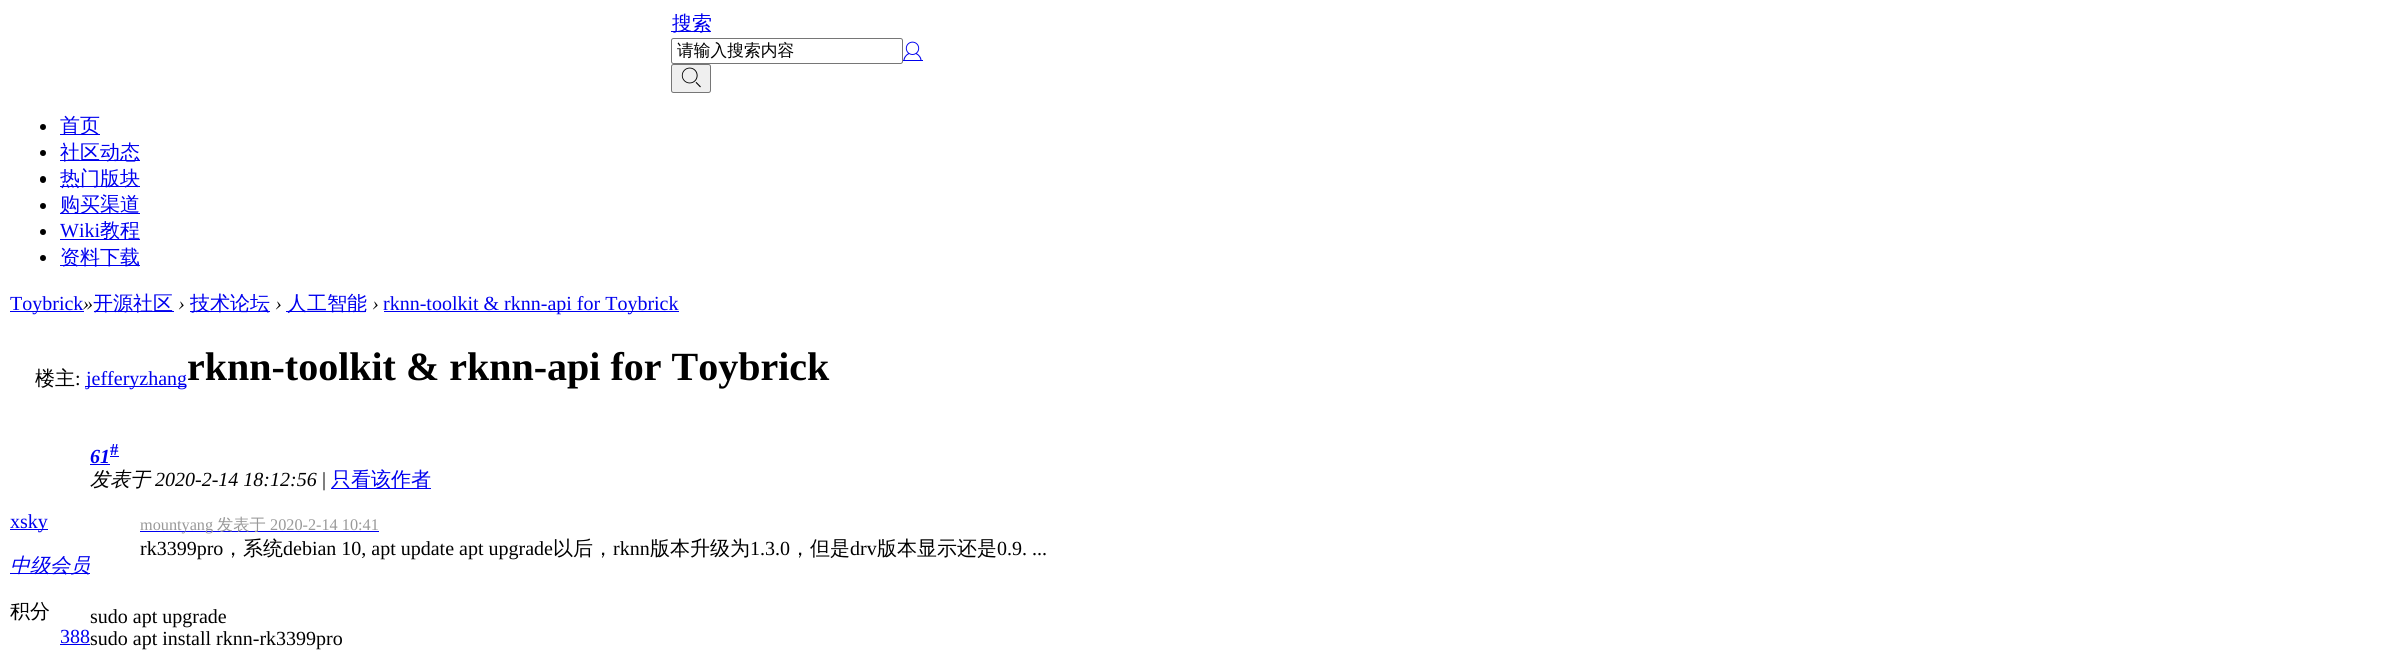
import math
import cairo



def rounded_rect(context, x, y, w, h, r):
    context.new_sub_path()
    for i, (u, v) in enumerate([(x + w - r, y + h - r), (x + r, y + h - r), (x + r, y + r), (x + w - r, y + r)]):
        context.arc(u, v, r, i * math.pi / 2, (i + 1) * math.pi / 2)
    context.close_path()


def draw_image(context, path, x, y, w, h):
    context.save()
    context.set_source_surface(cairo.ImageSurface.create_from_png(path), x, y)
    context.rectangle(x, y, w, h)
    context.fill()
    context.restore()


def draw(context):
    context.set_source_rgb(1, 1, 1)
    context.paint()
    context.set_source_rgb(0, 0, 238 / 255)
    context.rectangle(671, 31, 40, 1)
    context.fill()
    rounded_rect(context, 671.5, 38.5, 231, 25, 2)
    context.set_source_rgb(118 / 255, 118 / 255, 118 / 255)
    context.set_line_width(1)
    context.stroke()
    context.set_source_rgb(239 / 255, 239 / 255, 239 / 255)
    rounded_rect(context, 671.5, 64.5, 39, 28, 2)
    context.fill_preserve()
    context.set_source_rgb(118 / 255, 118 / 255, 118 / 255)
    context.stroke()
    draw_image(context, "images/1.png", 681, 67, 20, 21)
    draw_image(context, "images/2.png", 903, 41, 19, 19)
    context.set_source_rgb(0, 0, 238 / 255)
    context.rectangle(903, 60, 20, 1)
    context.fill()
    context.set_source_rgb(0, 0, 0)
    context.arc(43, 127, 3, 0, 2 * math.pi)
    context.fill()
    context.set_source_rgb(0, 0, 238 / 255)
    context.rectangle(60, 134, 40, 1)
    context.fill()
    context.set_source_rgb(0, 0, 0)
    context.arc(43, 153, 3, 0, 2 * math.pi)
    context.fill()
    context.set_source_rgb(0, 0, 238 / 255)
    context.rectangle(60, 160, 80, 1)
    context.fill()
    context.set_source_rgb(0, 0, 0)
    rounded_rect(context, 40, 176, 6, 7, 3)
    context.fill()
    context.set_source_rgb(0, 0, 238 / 255)
    context.rectangle(60, 186, 80, 1)
    context.fill()
    context.set_source_rgb(0, 0, 0)
    context.arc(43, 206, 3, 0, 2 * math.pi)
    context.fill()
    context.set_source_rgb(0, 0, 238 / 255)
    context.rectangle(60, 213, 80, 1)
    context.fill()
    context.set_source_rgb(0, 0, 0)
    context.arc(43, 232, 3, 0, 2 * math.pi)
    context.fill()
    context.set_source_rgb(0, 0, 238 / 255)
    context.rectangle(60, 239, 80, 1)
    context.fill()
    context.set_source_rgb(0, 0, 0)
    context.arc(43, 258, 3, 0, 2 * math.pi)
    context.fill()
    context.set_source_rgb(0, 0, 238 / 255)
    context.rectangle(60, 265, 80, 1)
    context.fill()
    context.rectangle(10, 311, 74, 1)
    context.fill()
    context.rectangle(94, 311, 80, 1)
    context.fill()
    context.rectangle(190, 311, 80, 1)
    context.fill()
    context.rectangle(286, 311, 80, 1)
    context.fill()
    context.rectangle(384, 311, 295, 1)
    context.fill()
    context.rectangle(85, 386, 101, 1)
    context.fill()
    context.rectangle(10, 529, 38, 1)
    context.fill()
    context.rectangle(10, 573, 80, 1)
    context.fill()
    context.rectangle(60, 644, 30, 1)
    context.fill()
    context.rectangle(90, 464, 20, 1)
    context.fill()
    context.rectangle(110, 456, 9, 1)
    context.fill()
    context.rectangle(331, 488, 100, 1)
    context.fill()
    context.rectangle(140, 531, 239, 1)
    context.fill()
    context.select_font_face("WenQuanYi Zen Hei Medium")
    context.set_font_size(20)
    context.move_to(672, 30)
    context.show_text("搜索")
    context.set_font_size(16.75)
    context.set_source_rgb(0, 0, 0)
    context.move_to(677, 56)
    context.show_text("请输入搜索内容")
    context.set_font_size(20)
    context.set_source_rgb(0, 0, 238 / 255)
    context.move_to(60, 132)
    context.show_text("首页")
    context.move_to(60, 159)
    context.show_text("社区动态")
    context.move_to(60, 185)
    context.show_text("热门版块")
    context.move_to(60, 211)
    context.show_text("购买渠道")
    context.select_font_face("Liberation Serif")
    context.move_to(60, 237)
    context.show_text("Wiki")
    context.select_font_face("WenQuanYi Zen Hei Medium")
    context.move_to(100, 237)
    context.show_text("教程")
    context.move_to(60, 264)
    context.show_text("资料下载")
    context.select_font_face("Liberation Serif")
    context.move_to(10, 310)
    context.show_text("Toybrick")
    context.select_font_face("Liberation Serif", cairo.FontSlant.ITALIC)
    context.set_source_rgb(0, 0, 0)
    context.move_to(83, 310)
    context.show_text("»")
    context.select_font_face("WenQuanYi Zen Hei Medium")
    context.set_source_rgb(0, 0, 238 / 255)
    context.move_to(93, 310)
    context.show_text("开源社区")
    context.select_font_face("Liberation Serif", cairo.FontSlant.ITALIC)
    context.set_source_rgb(0, 0, 0)
    context.move_to(178, 310)
    context.show_text("›")
    context.select_font_face("WenQuanYi Zen Hei Medium")
    context.set_source_rgb(0, 0, 238 / 255)
    context.move_to(190, 310)
    context.show_text("技术论坛")
    context.select_font_face("Liberation Serif", cairo.FontSlant.ITALIC)
    context.set_source_rgb(0, 0, 0)
    context.move_to(275, 310)
    context.show_text("›")
    context.select_font_face("WenQuanYi Zen Hei Medium")
    context.set_source_rgb(0, 0, 238 / 255)
    context.move_to(287, 310)
    context.show_text("人工智能")
    context.select_font_face("Liberation Serif", cairo.FontSlant.ITALIC)
    context.set_source_rgb(0, 0, 0)
    context.move_to(372, 310)
    context.show_text("›")
    context.select_font_face("Liberation Serif")
    context.set_source_rgb(0, 0, 238 / 255)
    context.move_to(383, 310)
    context.show_text("rknn-toolkit & rknn-api for Toybrick")
    context.select_font_face("WenQuanYi Zen Hei Medium")
    context.set_source_rgb(0, 0, 0)
    context.move_to(35, 385)
    context.show_text("楼主")
    context.select_font_face("Liberation Serif")
    context.move_to(75, 385)
    context.show_text(":")
    context.set_source_rgb(0, 0, 238 / 255)
    context.move_to(86, 385)
    context.show_text("jefferyzhang")
    context.select_font_face("Liberation Serif", cairo.FontSlant.NORMAL, cairo.FontWeight.BOLD)
    context.set_font_size(40)
    context.set_source_rgb(0, 0, 0)
    context.move_to(187, 380)
    context.show_text("rknn-toolkit & rknn-api for Toybrick")
    context.select_font_face("Liberation Serif")
    context.set_font_size(20)
    context.set_source_rgb(0, 0, 238 / 255)
    context.move_to(10, 528)
    context.show_text("xsky")
    context.select_font_face("WenQuanYi Zen Hei Medium", cairo.FontSlant.ITALIC)
    context.move_to(10, 572)
    context.show_text("中级会员")
    context.select_font_face("WenQuanYi Zen Hei Medium")
    context.set_source_rgb(0, 0, 0)
    context.move_to(10, 618)
    context.show_text("积分")
    context.select_font_face("Liberation Serif")
    context.set_source_rgb(0, 0, 238 / 255)
    context.move_to(60, 643)
    context.show_text("388")
    context.select_font_face("Liberation Serif", cairo.FontSlant.ITALIC, cairo.FontWeight.BOLD)
    context.move_to(90, 463)
    context.show_text("61")
    context.select_font_face("Liberation Serif", cairo.FontSlant.NORMAL, cairo.FontWeight.BOLD)
    context.set_font_size(16.75)
    context.move_to(110, 455)
    context.show_text("#")
    context.select_font_face("WenQuanYi Zen Hei Medium", cairo.FontSlant.ITALIC)
    context.set_font_size(20)
    context.set_source_rgb(0, 0, 0)
    context.move_to(90, 486)
    context.show_text("发表于")
    context.select_font_face("Liberation Serif", cairo.FontSlant.ITALIC)
    context.move_to(155, 486)
    context.show_text("2020-2-14 18:12:56")
    context.select_font_face("Liberation Serif")
    context.move_to(322, 486)
    context.show_text("|")
    context.select_font_face("WenQuanYi Zen Hei Medium")
    context.set_source_rgb(0, 0, 238 / 255)
    context.move_to(331, 486)
    context.show_text("只看该作者")
    context.select_font_face("Liberation Serif")
    context.set_font_size(16.25)
    context.set_source_rgb(153 / 255, 153 / 255, 153 / 255)
    context.move_to(140, 530)
    context.show_text("mountyang")
    context.select_font_face("WenQuanYi Zen Hei Medium")
    context.move_to(217, 530)
    context.show_text("发表于")
    context.select_font_face("Liberation Serif")
    context.move_to(270, 530)
    context.show_text("2020-2-14 10:41")
    context.set_font_size(20)
    context.set_source_rgb(0, 0, 0)
    context.move_to(140, 555)
    context.show_text("rk3399pro")
    context.select_font_face("WenQuanYi Zen Hei Medium")
    context.move_to(223, 555)
    context.show_text("，系统")
    context.select_font_face("Liberation Serif")
    context.move_to(283, 555)
    context.show_text("debian 10, apt update apt upgrade")
    context.select_font_face("WenQuanYi Zen Hei Medium")
    context.move_to(553, 555)
    context.show_text("以后，")
    context.select_font_face("Liberation Serif")
    context.move_to(613, 555)
    context.show_text("rknn")
    context.select_font_face("WenQuanYi Zen Hei Medium")
    context.move_to(650, 555)
    context.show_text("版本升级为")
    context.select_font_face("Liberation Serif")
    context.move_to(750, 555)
    context.show_text("1.3.0")
    context.select_font_face("WenQuanYi Zen Hei Medium")
    context.move_to(790, 555)
    context.show_text("，但是")
    context.select_font_face("Liberation Serif")
    context.move_to(850, 555)
    context.show_text("drv")
    context.select_font_face("WenQuanYi Zen Hei Medium")
    context.move_to(877, 555)
    context.show_text("版本显示还是")
    context.select_font_face("Liberation Serif")
    context.move_to(997, 555)
    context.show_text("0.9. ...")
    context.move_to(90, 623)
    context.show_text("sudo apt upgrade")
    context.move_to(90, 645)
    context.show_text("sudo apt install rknn-rk3399pro")


surface = cairo.ImageSurface(cairo.Format.RGB24, 2389, 671)
context = cairo.Context(surface)
options = cairo.FontOptions()
options.set_hint_metrics(cairo.HintMetrics.OFF)
options.set_hint_style(cairo.HintStyle.NONE)
context.set_font_options(options)
context.set_miter_limit(4)
draw(context)
surface.write_to_png("out.png")
